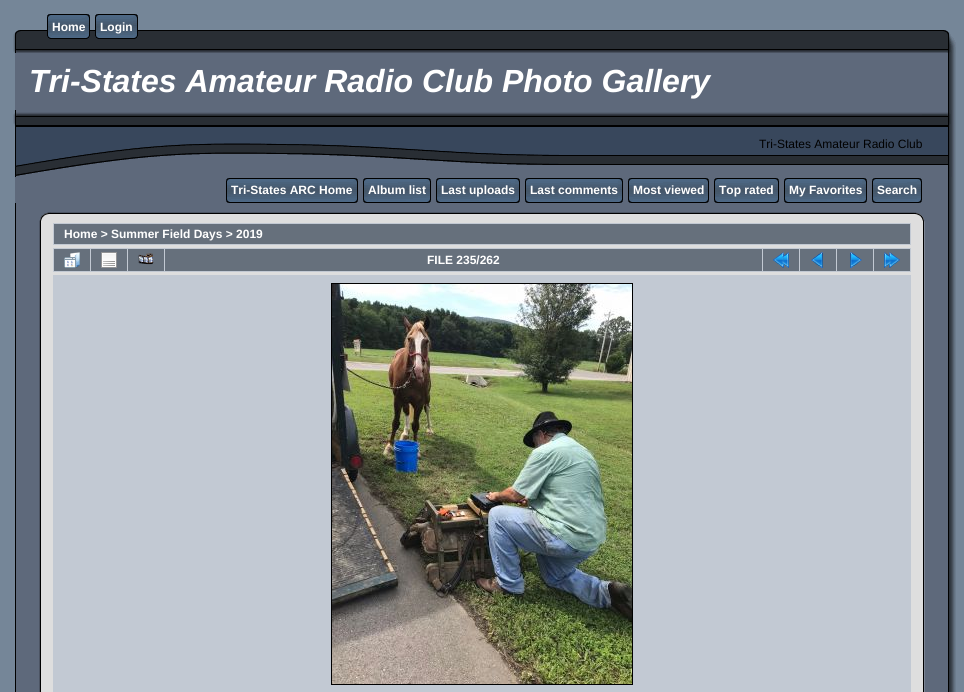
import math
import cairo



def draw_image(context, path, x, y, w, h):
    context.save()
    context.set_source_surface(cairo.ImageSurface.create_from_png(path), x, y)
    context.rectangle(x, y, w, h)
    context.fill()
    context.restore()


def draw(context):
    context.set_source_rgb(117 / 255, 134 / 255, 152 / 255)
    context.paint()
    draw_image(context, "images/1.png", 42, 30, 880, 23)
    draw_image(context, "images/2.png", 47, 14, 5, 25)
    draw_image(context, "images/3.png", 52, 14, 33, 25)
    draw_image(context, "images/4.png", 85, 14, 5, 25)
    draw_image(context, "images/2.png", 95, 14, 5, 25)
    draw_image(context, "images/5.png", 100, 14, 33, 25)
    draw_image(context, "images/4.png", 133, 14, 5, 25)
    draw_image(context, "images/6.png", 13, 30, 29, 23)
    draw_image(context, "images/7.png", 922, 30, 34, 23)
    context.set_source_rgb(94 / 255, 105 / 255, 123 / 255)
    context.rectangle(15, 53, 933, 57)
    context.fill()
    draw_image(context, "images/8.png", 948, 53, 8, 57)
    draw_image(context, "images/9.png", 13, 110, 547, 67)
    draw_image(context, "images/10.png", 560, 110, 362, 67)
    draw_image(context, "images/11.png", 922, 110, 34, 67)
    context.rectangle(15, 177, 907, 26)
    context.fill()
    draw_image(context, "images/12.png", 922, 177, 34, 26)
    draw_image(context, "images/13.png", 226, 178, 5, 25)
    draw_image(context, "images/14.png", 231, 178, 122, 25)
    draw_image(context, "images/15.png", 353, 178, 5, 25)
    draw_image(context, "images/13.png", 363, 178, 5, 25)
    draw_image(context, "images/16.png", 368, 178, 58, 25)
    draw_image(context, "images/15.png", 426, 178, 5, 25)
    draw_image(context, "images/13.png", 436, 178, 5, 25)
    draw_image(context, "images/17.png", 441, 178, 74, 25)
    draw_image(context, "images/15.png", 515, 178, 5, 25)
    draw_image(context, "images/13.png", 525, 178, 5, 25)
    draw_image(context, "images/18.png", 530, 178, 88, 25)
    draw_image(context, "images/15.png", 618, 178, 5, 25)
    draw_image(context, "images/13.png", 628, 178, 5, 25)
    draw_image(context, "images/19.png", 633, 178, 71, 25)
    draw_image(context, "images/15.png", 704, 178, 5, 25)
    draw_image(context, "images/13.png", 714, 178, 5, 25)
    draw_image(context, "images/20.png", 719, 178, 55, 25)
    draw_image(context, "images/15.png", 774, 178, 5, 25)
    draw_image(context, "images/13.png", 784, 178, 5, 25)
    draw_image(context, "images/21.png", 789, 178, 73, 25)
    draw_image(context, "images/15.png", 862, 178, 5, 25)
    draw_image(context, "images/13.png", 872, 178, 5, 25)
    draw_image(context, "images/22.png", 877, 178, 40, 25)
    draw_image(context, "images/15.png", 917, 178, 5, 25)
    draw_image(context, "images/23.png", 15, 203, 27, 18)
    draw_image(context, "images/24.png", 42, 203, 14, 18)
    draw_image(context, "images/25.png", 56, 203, 852, 18)
    draw_image(context, "images/26.png", 908, 203, 14, 18)
    draw_image(context, "images/27.png", 922, 203, 34, 18)
    draw_image(context, "images/28.png", 15, 221, 27, 471)
    context.set_source_rgb(222 / 255, 222 / 255, 222 / 255)
    context.rectangle(42, 221, 880, 471)
    context.fill()
    context.set_source_rgb(194 / 255, 201 / 255, 211 / 255)
    context.rectangle(53, 223, 858, 22)
    context.fill()
    context.set_source_rgb(102 / 255, 112 / 255, 124 / 255)
    context.rectangle(54, 224, 856, 20)
    context.fill()
    context.set_source_rgb(194 / 255, 201 / 255, 211 / 255)
    context.rectangle(53, 248, 858, 24)
    context.fill()
    context.set_source_rgb(102 / 255, 112 / 255, 124 / 255)
    context.rectangle(54, 249, 36, 22)
    context.fill()
    draw_image(context, "images/29.png", 64, 252, 16, 16)
    context.rectangle(91, 249, 36, 22)
    context.fill()
    draw_image(context, "images/30.png", 101, 252, 16, 16)
    context.rectangle(128, 249, 36, 22)
    context.fill()
    draw_image(context, "images/31.png", 138, 253, 16, 12)
    context.rectangle(165, 249, 597, 22)
    context.fill()
    context.rectangle(763, 249, 36, 22)
    context.fill()
    draw_image(context, "images/32.png", 773, 252, 16, 16)
    context.rectangle(800, 249, 36, 22)
    context.fill()
    draw_image(context, "images/33.png", 811, 252, 12, 16)
    context.rectangle(837, 249, 36, 22)
    context.fill()
    draw_image(context, "images/34.png", 850, 252, 12, 16)
    context.rectangle(874, 249, 36, 22)
    context.fill()
    draw_image(context, "images/35.png", 884, 252, 16, 16)
    context.set_source_rgb(194 / 255, 201 / 255, 211 / 255)
    context.rectangle(53, 275, 858, 417)
    context.fill()
    context.rectangle(331.5, 283.5, 301, 401)
    context.set_source_rgb(0, 0, 0)
    context.set_line_width(1)
    context.stroke()
    draw_image(context, "images/36.png", 332, 284, 300, 400)
    draw_image(context, "images/37.png", 922, 221, 34, 471)
    draw_image(context, "images/38.png", 924, 442, 1, 108)
    context.select_font_face("Liberation Sans", cairo.FontSlant.NORMAL, cairo.FontWeight.BOLD)
    context.set_font_size(12)
    context.set_source_rgb(1, 1, 1)
    context.move_to(52, 31)
    context.show_text("Home")
    context.move_to(100, 31)
    context.show_text("Login")
    context.select_font_face("Liberation Sans", cairo.FontSlant.ITALIC, cairo.FontWeight.BOLD)
    context.set_font_size(32)
    context.move_to(29, 92)
    context.show_text("Tri-States Amateur Radio Club Photo Gallery")
    context.select_font_face("Liberation Sans")
    context.set_font_size(12)
    context.set_source_rgb(0, 0, 0)
    context.move_to(759, 148)
    context.show_text("Tri-States Amateur Radio Club")
    context.select_font_face("Liberation Sans", cairo.FontSlant.NORMAL, cairo.FontWeight.BOLD)
    context.set_source_rgb(1, 1, 1)
    context.move_to(231, 194)
    context.show_text("Tri-States ARC Home")
    context.move_to(368, 194)
    context.show_text("Album list")
    context.move_to(441, 194)
    context.show_text("Last uploads")
    context.move_to(530, 194)
    context.show_text("Last comments")
    context.move_to(633, 194)
    context.show_text("Most viewed")
    context.move_to(719, 194)
    context.show_text("Top rated")
    context.move_to(789, 194)
    context.show_text("My Favorites")
    context.move_to(877, 194)
    context.show_text("Search")
    context.move_to(64, 238)
    context.show_text("Home > Summer Field Days > 2019")
    context.move_to(427, 264)
    context.show_text("FILE 235/262")


surface = cairo.ImageSurface(cairo.Format.RGB24, 964, 692)
context = cairo.Context(surface)
options = cairo.FontOptions()
options.set_hint_metrics(cairo.HintMetrics.OFF)
options.set_hint_style(cairo.HintStyle.NONE)
context.set_font_options(options)
context.set_miter_limit(4)
draw(context)
surface.write_to_png("out.png")
